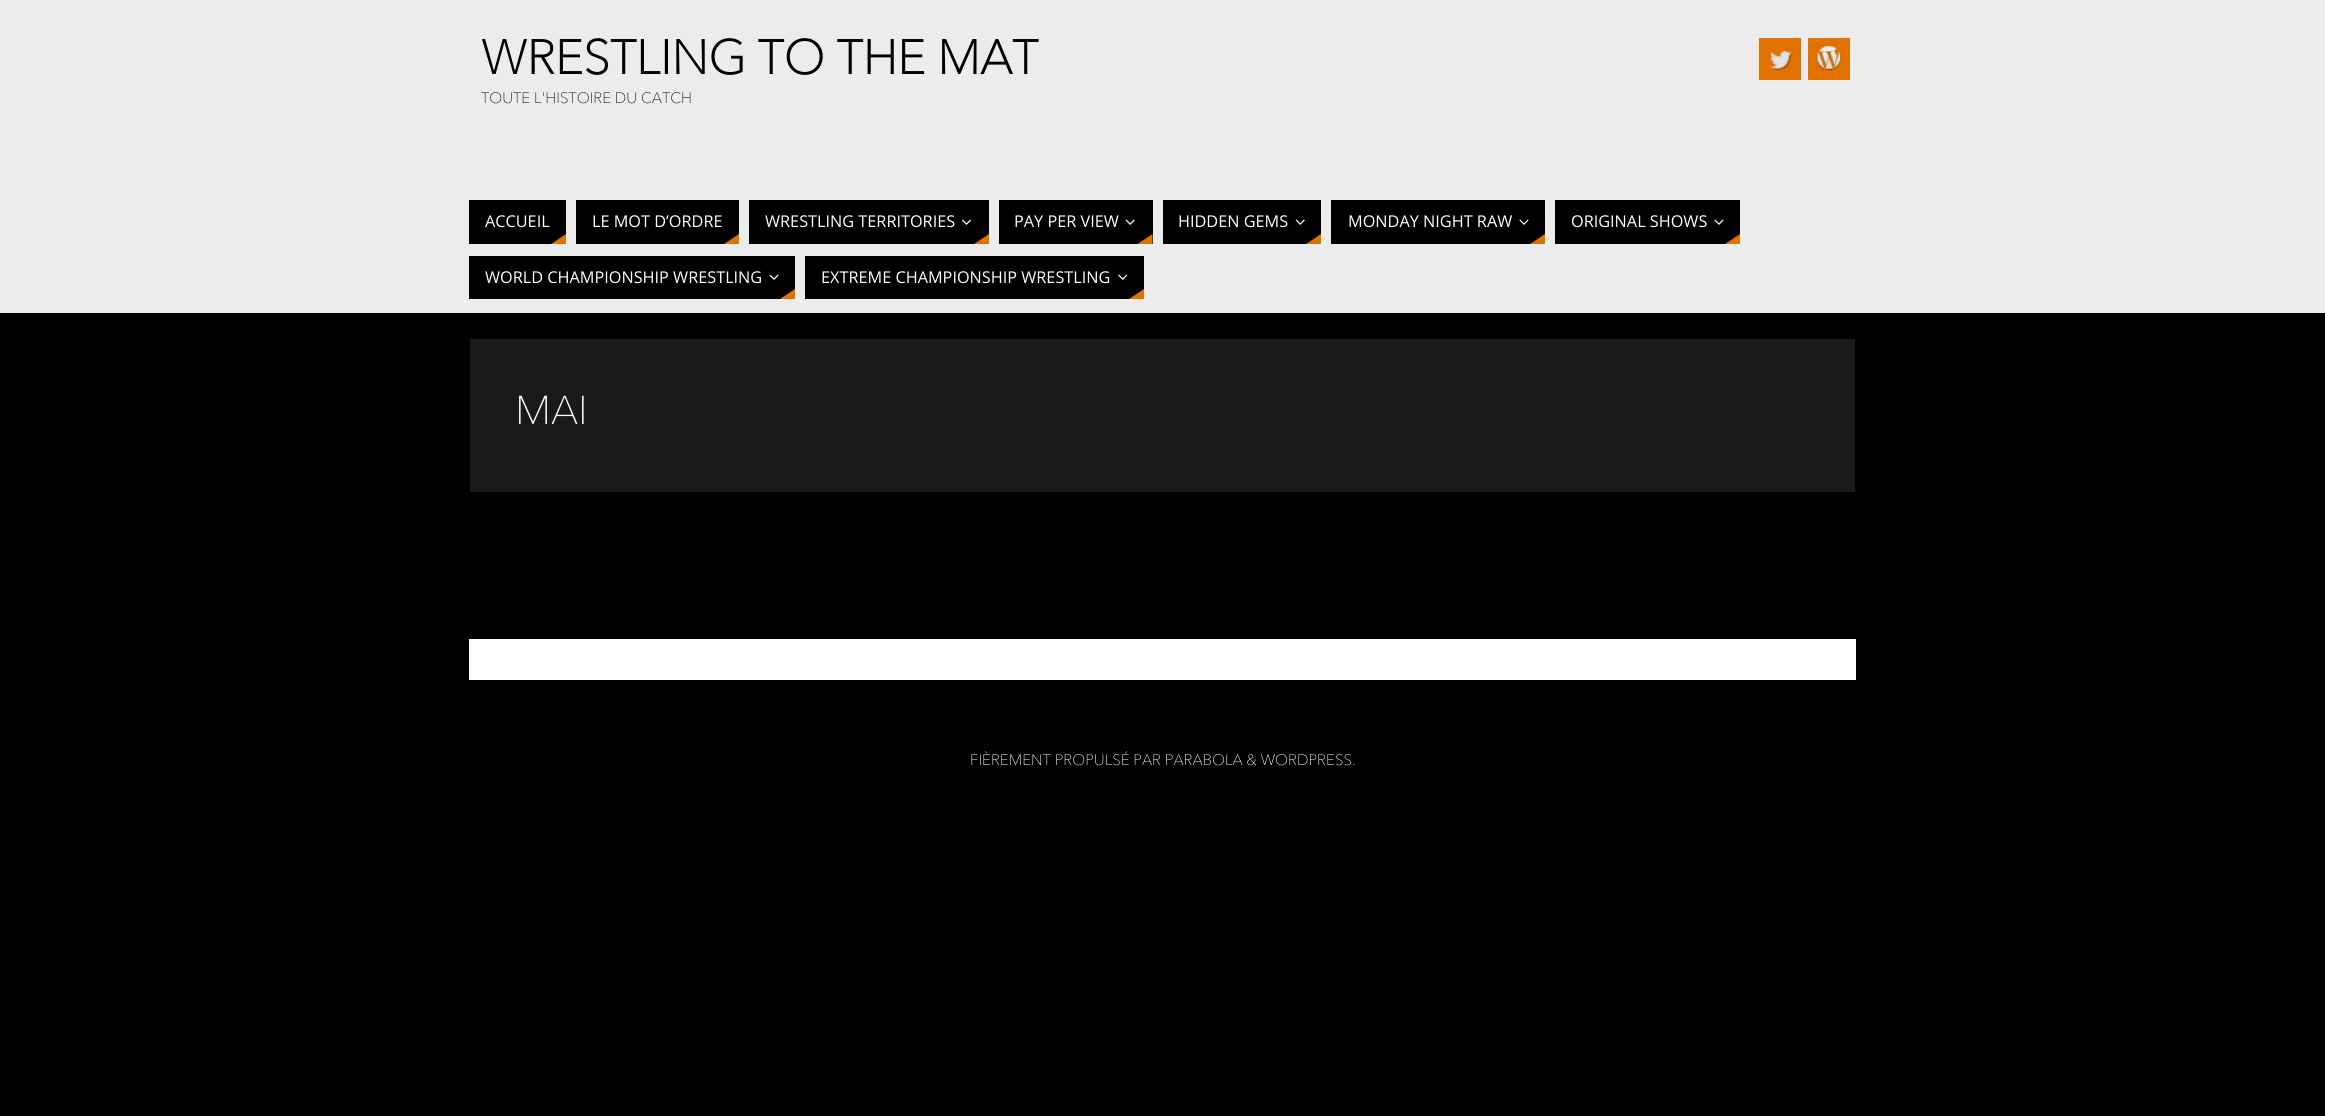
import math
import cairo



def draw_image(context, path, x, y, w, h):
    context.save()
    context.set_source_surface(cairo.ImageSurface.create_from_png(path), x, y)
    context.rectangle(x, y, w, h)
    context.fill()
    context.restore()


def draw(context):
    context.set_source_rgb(0, 0, 0)
    context.paint()
    context.set_source_rgb(237 / 255, 236 / 255, 236 / 255)
    context.rectangle(0, 0, 2325, 313)
    context.fill()
    context.set_source_rgb(225 / 255, 114 / 255, 0)
    context.rectangle(1759, 38, 42, 42)
    context.fill()
    draw_image(context, "images/1.png", 1770, 51, 23, 20)
    context.rectangle(1808, 38, 42, 42)
    context.fill()
    draw_image(context, "images/2.png", 1816, 45, 26, 27)
    context.set_source_rgb(0, 0, 0)
    context.rectangle(469, 200, 97, 44)
    context.fill()
    context.set_source_rgb(225 / 255, 114 / 255, 0)
    context.new_path()
    context.move_to(566, 244)
    context.line_to(551, 244)
    context.line_to(566, 234)
    context.close_path()
    context.fill()
    context.set_source_rgb(0, 0, 0)
    context.rectangle(576, 200, 163, 44)
    context.fill()
    context.set_source_rgb(225 / 255, 114 / 255, 0)
    context.new_path()
    context.move_to(739, 244)
    context.line_to(724, 244)
    context.line_to(739, 234)
    context.close_path()
    context.fill()
    context.set_source_rgb(0, 0, 0)
    context.rectangle(749, 200, 240, 44)
    context.fill()
    draw_image(context, "images/3.png", 962, 219, 9, 6)
    context.set_source_rgb(225 / 255, 114 / 255, 0)
    context.new_path()
    context.move_to(989, 244)
    context.line_to(974, 244)
    context.line_to(989, 234)
    context.close_path()
    context.fill()
    context.set_source_rgb(0, 0, 0)
    context.rectangle(999, 200, 154, 44)
    context.fill()
    draw_image(context, "images/4.png", 1125, 219, 10, 6)
    context.set_source_rgb(225 / 255, 114 / 255, 0)
    context.new_path()
    context.move_to(1152.5, 244)
    context.line_to(1137.5, 244)
    context.line_to(1152.5, 234)
    context.close_path()
    context.fill()
    context.set_source_rgb(0, 0, 0)
    context.rectangle(1163, 200, 158, 44)
    context.fill()
    draw_image(context, "images/4.png", 1295, 219, 10, 6)
    context.set_source_rgb(225 / 255, 114 / 255, 0)
    context.new_path()
    context.move_to(1321, 244)
    context.line_to(1306, 244)
    context.line_to(1321, 234)
    context.close_path()
    context.fill()
    context.set_source_rgb(0, 0, 0)
    context.rectangle(1331, 200, 214, 44)
    context.fill()
    draw_image(context, "images/5.png", 1519, 219, 10, 6)
    context.set_source_rgb(225 / 255, 114 / 255, 0)
    context.new_path()
    context.move_to(1545, 244)
    context.line_to(1530, 244)
    context.line_to(1545, 234)
    context.close_path()
    context.fill()
    context.set_source_rgb(0, 0, 0)
    context.rectangle(1555, 200, 185, 44)
    context.fill()
    draw_image(context, "images/5.png", 1714, 219, 10, 6)
    context.set_source_rgb(225 / 255, 114 / 255, 0)
    context.new_path()
    context.move_to(1740, 244)
    context.line_to(1725, 244)
    context.line_to(1740, 234)
    context.close_path()
    context.fill()
    context.set_source_rgb(0, 0, 0)
    context.rectangle(469, 256, 326, 43)
    context.fill()
    draw_image(context, "images/5.png", 769, 274, 10, 6)
    context.set_source_rgb(225 / 255, 114 / 255, 0)
    context.new_path()
    context.move_to(795, 299)
    context.line_to(780, 299)
    context.line_to(795, 289)
    context.close_path()
    context.fill()
    context.set_source_rgb(0, 0, 0)
    context.rectangle(805, 256, 339, 43)
    context.fill()
    draw_image(context, "images/6.png", 1118, 274, 10, 6)
    context.set_source_rgb(225 / 255, 114 / 255, 0)
    context.new_path()
    context.move_to(1144, 299)
    context.line_to(1129, 299)
    context.line_to(1144, 289)
    context.close_path()
    context.fill()
    context.set_source_rgb(25 / 255, 26 / 255, 25 / 255)
    context.rectangle(470, 339, 1385, 153)
    context.fill()
    context.set_source_rgb(1, 1, 1)
    context.rectangle(469, 639, 1387, 41)
    context.fill()
    context.set_source_rgb(3 / 255, 3 / 255, 3 / 255)
    context.rectangle(0, 711, 2325, 1)
    context.fill()
    context.select_font_face("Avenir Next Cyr", cairo.FontSlant.NORMAL, cairo.FontWeight.BOLD)
    context.set_font_size(47.5)
    context.set_source_rgb(0, 0, 0)
    context.move_to(481, 74)
    context.show_text("WRESTLING TO THE MAT")
    context.select_font_face("Avenir Next Cyr Thin")
    context.set_font_size(15)
    context.move_to(481, 103)
    context.show_text("TOUTE L'HISTOIRE DU CATCH")
    context.select_font_face("Open Sans")
    context.set_font_size(16.25)
    context.set_source_rgb(1, 1, 1)
    context.move_to(485, 227)
    context.show_text("ACCUEIL")
    context.move_to(592, 227)
    context.show_text("LE MOT D’ORDRE")
    context.move_to(765, 227)
    context.show_text("WRESTLING TERRITORIES")
    context.move_to(1014, 227)
    context.show_text("PAY PER VIEW")
    context.move_to(1178, 227)
    context.show_text("HIDDEN GEMS")
    context.move_to(1348, 227)
    context.show_text("MONDAY NIGHT RAW")
    context.move_to(1571, 227)
    context.show_text("ORIGINAL SHOWS")
    context.move_to(485, 283)
    context.show_text("WORLD CHAMPIONSHIP WRESTLING")
    context.move_to(821, 283)
    context.show_text("EXTREME CHAMPIONSHIP WRESTLING")
    context.select_font_face("Avenir Next Cyr Thin")
    context.set_font_size(40)
    context.move_to(515, 424)
    context.show_text("MAI")
    context.set_font_size(15)
    context.move_to(970, 765)
    context.show_text("FIÈREMENT PROPULSÉ PAR PARABOLA & WORDPRESS.")


surface = cairo.ImageSurface(cairo.Format.RGB24, 2325, 1116)
context = cairo.Context(surface)
options = cairo.FontOptions()
options.set_hint_metrics(cairo.HintMetrics.OFF)
options.set_hint_style(cairo.HintStyle.NONE)
context.set_font_options(options)
context.set_miter_limit(4)
draw(context)
surface.write_to_png("out.png")
